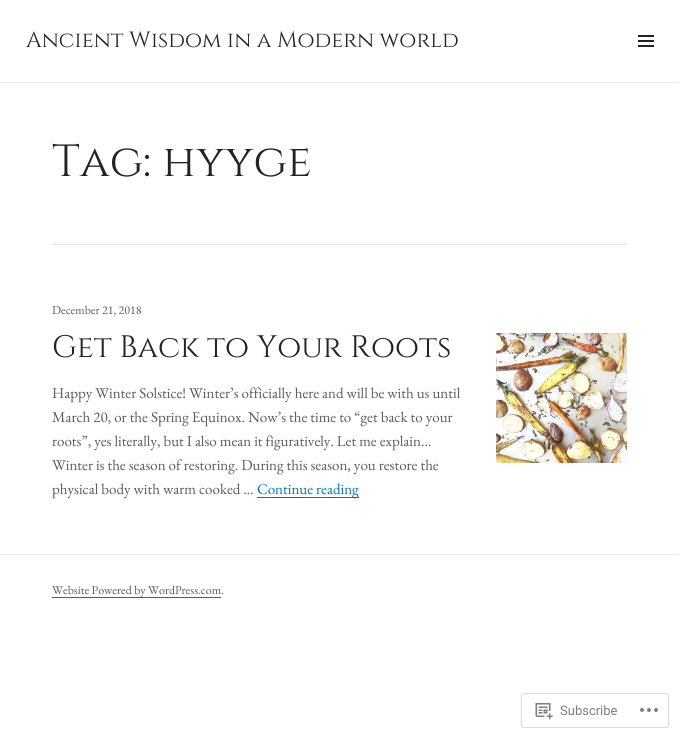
import math
import cairo



def rounded_rect(context, x, y, w, h, r):
    context.new_sub_path()
    for i, (u, v) in enumerate([(x + w - r, y + h - r), (x + r, y + h - r), (x + r, y + r), (x + w - r, y + r)]):
        context.arc(u, v, r, i * math.pi / 2, (i + 1) * math.pi / 2)
    context.close_path()


def draw_image(context, path, x, y, w, h):
    context.save()
    context.set_source_surface(cairo.ImageSurface.create_from_png(path), x, y)
    context.rectangle(x, y, w, h)
    context.fill()
    context.restore()


def draw(context):
    context.set_source_rgb(1, 1, 1)
    context.paint()
    context.set_source_rgb(230 / 255, 230 / 255, 230 / 255)
    context.rectangle(0, 82, 679, 1)
    context.fill()
    draw_image(context, "images/1.png", 638, 35, 16, 12)
    context.rectangle(52, 244, 575, 1)
    context.fill()
    draw_image(context, "images/2.png", 496, 333, 131, 130)
    context.set_source_rgb(0, 116 / 255, 184 / 255)
    context.rectangle(257, 497, 102, 1)
    context.fill()
    context.set_source_rgb(230 / 255, 230 / 255, 230 / 255)
    context.rectangle(0, 554, 679, 1)
    context.fill()
    context.set_source_rgb(91 / 255, 91 / 255, 91 / 255)
    context.rectangle(52, 597, 169, 1)
    context.fill()
    rounded_rect(context, 521.5, 693.5, 147, 34, 2.5)
    context.set_source_rgb(221 / 255, 221 / 255, 223 / 255)
    context.set_line_width(1)
    context.stroke()
    draw_image(context, "images/3.png", 535, 703, 18, 17)
    draw_image(context, "images/4.png", 640, 708, 18, 4)
    context.select_font_face("Cinzel")
    context.set_font_size(22)
    context.set_source_rgb(35 / 255, 35 / 255, 35 / 255)
    context.move_to(26, 47)
    context.show_text("Ancient Wisdom in a Modern world")
    context.set_font_size(45)
    context.move_to(52, 176)
    context.show_text("Tag: hyyge")
    context.select_font_face("EB Garamond")
    context.set_font_size(12)
    context.set_source_rgb(91 / 255, 91 / 255, 91 / 255)
    context.move_to(52, 314)
    context.show_text("December 21, 2018")
    context.select_font_face("Cinzel")
    context.set_font_size(31)
    context.set_source_rgb(35 / 255, 35 / 255, 35 / 255)
    context.move_to(52, 357)
    context.show_text("Get Back to Your Roots")
    context.select_font_face("EB Garamond")
    context.set_font_size(15)
    context.set_source_rgb(91 / 255, 91 / 255, 91 / 255)
    context.move_to(52, 398)
    context.show_text("Happy Winter Solstice! Winter’s officially here and will be with us until")
    context.move_to(52, 422)
    context.show_text("March 20, or the Spring Equinox. Now’s the time to “get back to your")
    context.move_to(52, 446)
    context.show_text("roots”, yes literally, but I also mean it figuratively. Let me explain…")
    context.move_to(52, 470)
    context.show_text("Winter is the season of restoring. During this season, you restore the")
    context.move_to(52, 494)
    context.show_text("physical body with warm cooked …")
    context.set_source_rgb(0, 116 / 255, 184 / 255)
    context.move_to(257, 494)
    context.show_text("Continue reading")
    context.set_font_size(12)
    context.set_source_rgb(91 / 255, 91 / 255, 91 / 255)
    context.move_to(52, 594)
    context.show_text("Website Powered by WordPress.com.")
    context.select_font_face("Roboto")
    context.set_font_size(13)
    context.set_source_rgb(123 / 255, 127 / 255, 133 / 255)
    context.move_to(560, 715)
    context.show_text("Subscribe")


surface = cairo.ImageSurface(cairo.Format.RGB24, 679, 738)
context = cairo.Context(surface)
options = cairo.FontOptions()
options.set_hint_metrics(cairo.HintMetrics.OFF)
options.set_hint_style(cairo.HintStyle.NONE)
context.set_font_options(options)
context.set_miter_limit(4)
draw(context)
surface.write_to_png("out.png")
